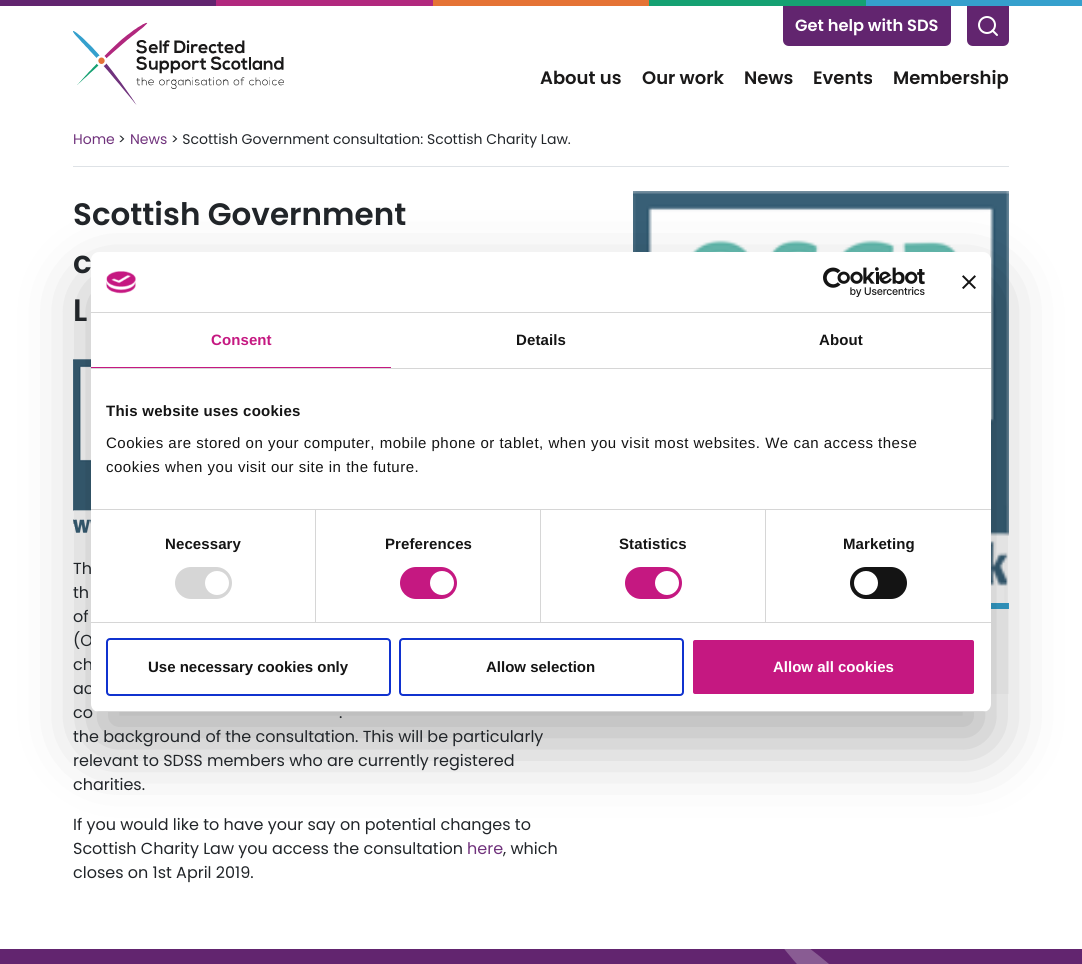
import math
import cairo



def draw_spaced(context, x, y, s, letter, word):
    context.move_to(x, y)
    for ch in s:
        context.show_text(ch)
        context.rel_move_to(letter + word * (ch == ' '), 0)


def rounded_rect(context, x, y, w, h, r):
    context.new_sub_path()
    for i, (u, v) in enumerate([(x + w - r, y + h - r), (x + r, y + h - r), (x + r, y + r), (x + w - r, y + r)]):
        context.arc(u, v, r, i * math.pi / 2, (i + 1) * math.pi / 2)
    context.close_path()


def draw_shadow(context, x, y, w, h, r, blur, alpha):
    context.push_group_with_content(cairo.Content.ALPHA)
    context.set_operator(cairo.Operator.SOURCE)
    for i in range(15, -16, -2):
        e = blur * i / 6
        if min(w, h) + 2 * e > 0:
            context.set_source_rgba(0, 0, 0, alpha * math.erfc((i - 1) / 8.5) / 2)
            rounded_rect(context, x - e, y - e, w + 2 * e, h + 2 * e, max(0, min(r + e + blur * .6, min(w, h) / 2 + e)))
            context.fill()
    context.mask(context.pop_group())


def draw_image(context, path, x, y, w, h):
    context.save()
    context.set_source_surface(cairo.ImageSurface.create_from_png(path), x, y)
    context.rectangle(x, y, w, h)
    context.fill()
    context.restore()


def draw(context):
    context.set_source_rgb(1, 1, 1)
    context.paint()
    context.set_source_rgb(98 / 255, 37 / 255, 111 / 255)
    context.rectangle(0, 0, 216, 6)
    context.fill()
    context.set_source_rgb(177 / 255, 40 / 255, 126 / 255)
    context.rectangle(216, 0, 217, 6)
    context.fill()
    context.set_source_rgb(229 / 255, 115 / 255, 53 / 255)
    context.rectangle(433, 0, 216, 6)
    context.fill()
    context.set_source_rgb(21 / 255, 161 / 255, 114 / 255)
    context.rectangle(649, 0, 217, 6)
    context.fill()
    context.set_source_rgb(53 / 255, 160 / 255, 205 / 255)
    context.rectangle(866, 0, 216, 6)
    context.fill()
    draw_image(context, "images/1.png", 73, 22, 211, 83)
    context.set_source_rgb(98 / 255, 37 / 255, 111 / 255)
    context.new_path()
    context.move_to(967, 6)
    context.line_to(1009, 6)
    context.line_to(1009, 40)
    context.curve_to(1009, 43.5, 1006.5, 46, 1003, 46)
    context.line_to(973, 46)
    context.curve_to(969.5, 46, 967, 43.5, 967, 40)
    context.close_path()
    context.fill()
    context.arc(987, 25, 8, 0, 2 * math.pi)
    context.set_source_rgb(1, 1, 1)
    context.stroke()
    context.new_path()
    context.move_to(997, 35)
    context.line_to(992.5, 30.5)
    context.set_line_cap(cairo.LineCap.ROUND)
    context.set_line_join(cairo.LineJoin.ROUND)
    context.stroke()
    context.set_source_rgb(98 / 255, 37 / 255, 111 / 255)
    context.new_path()
    context.move_to(783, 6)
    context.line_to(951, 6)
    context.line_to(951, 40)
    context.curve_to(951, 43.5, 948.5, 46, 945, 46)
    context.line_to(789, 46)
    context.curve_to(785.5, 46, 783, 43.5, 783, 40)
    context.close_path()
    context.fill()
    context.set_source_rgb(222 / 255, 226 / 255, 230 / 255)
    context.rectangle(73, 166, 936, 1)
    context.fill()
    draw_image(context, "images/2.png", 73, 359, 18, 174)
    draw_image(context, "images/3.png", 633, 191, 376, 412)
    context.set_source_rgb(248 / 255, 248 / 255, 248 / 255)
    context.rectangle(991, 609, 18, 85)
    context.fill()
    context.set_source_rgb(53 / 255, 160 / 255, 205 / 255)
    context.rectangle(991, 603, 18, 6)
    context.fill()
    context.set_source_rgb(98 / 255, 37 / 255, 111 / 255)
    context.rectangle(0, 949, 1082, 15)
    context.fill()
    draw_image(context, "images/4.png", 784, 949, 45, 15)
    context.set_source_rgb(0, 0, 0)
    draw_shadow(context, 91, 284, 900, 460, 8, 34, 0.3)
    context.select_font_face("Poppins SemiBold")
    context.set_font_size(16.25)
    context.set_source_rgb(1, 1, 1)
    context.move_to(795, 31)
    context.show_text("Get help with SDS")
    context.set_font_size(18)
    context.set_source_rgb(26 / 255, 25 / 255, 25 / 255)
    context.move_to(540, 84)
    context.show_text("About us")
    context.move_to(642, 84)
    context.show_text("Our work")
    context.move_to(744, 84)
    context.show_text("News")
    context.move_to(813, 84)
    context.show_text("Events")
    context.move_to(893, 84)
    context.show_text("Membership")
    context.select_font_face("Poppins")
    context.set_font_size(14)
    context.set_source_rgb(112 / 255, 50 / 255, 124 / 255)
    context.move_to(73, 144)
    context.show_text("Home")
    context.set_source_rgb(33 / 255, 37 / 255, 41 / 255)
    context.move_to(118, 144)
    context.show_text(">")
    context.set_source_rgb(112 / 255, 50 / 255, 124 / 255)
    context.move_to(130, 144)
    context.show_text("News")
    context.set_source_rgb(33 / 255, 37 / 255, 41 / 255)
    context.move_to(171, 144)
    context.show_text("> Scottish Government consultation: Scottish Charity Law.")
    context.select_font_face("Poppins SemiBold")
    context.set_font_size(31)
    context.move_to(73, 225)
    context.show_text("Scottish Government")
    context.move_to(73, 273)
    context.show_text("c")
    context.move_to(73, 321)
    context.show_text("L")
    context.select_font_face("Poppins")
    context.set_font_size(16)
    context.move_to(73, 574)
    context.show_text("Th")
    context.move_to(73, 598)
    context.show_text("th")
    context.move_to(73, 622)
    context.show_text("of")
    context.move_to(73, 646)
    context.show_text("(O")
    context.move_to(73, 670)
    context.show_text("ch")
    context.move_to(73, 694)
    context.show_text("ac")
    context.move_to(73, 718)
    context.show_text("co")
    context.move_to(339, 718)
    context.show_text(".")
    context.move_to(73, 742)
    context.show_text("the background of the consultation. This will be particularly")
    context.move_to(73, 766)
    context.show_text("relevant to SDSS members who are currently registered")
    context.move_to(73, 790)
    context.show_text("charities.")
    context.move_to(73, 830)
    context.show_text("If you would like to have your say on potential changes to")
    context.move_to(73, 854)
    context.show_text("Scottish Charity Law you access the consultation")
    context.set_source_rgb(112 / 255, 50 / 255, 124 / 255)
    context.move_to(467, 854)
    context.show_text("here")
    context.set_source_rgb(33 / 255, 37 / 255, 41 / 255)
    context.move_to(503, 854)
    context.show_text(", which")
    context.move_to(73, 878)
    context.show_text("closes on 1st April 2019.")
    context.set_source_rgb(1, 1, 1)
    rounded_rect(context, 91, 252, 900, 460, 8)
    context.fill()
    context.set_source_rgb(214 / 255, 214 / 255, 214 / 255)
    context.rectangle(91, 312, 900, 1)
    context.fill()
    draw_image(context, "images/5.png", 106, 271, 30, 23)
    draw_image(context, "images/6.png", 823, 267, 102, 30)
    draw_image(context, "images/7.png", 962, 275, 14, 14)
    context.rectangle(91, 368, 900, 1)
    context.fill()
    context.set_source_rgb(197 / 255, 24 / 255, 129 / 255)
    context.rectangle(91, 367, 300, 1)
    context.fill()
    context.select_font_face("Liberation Sans", cairo.FontSlant.NORMAL, cairo.FontWeight.BOLD)
    context.set_font_size(15)
    draw_spaced(context, 211, 345, "Consent", 0.1, 0)
    context.set_source_rgb(20 / 255, 20 / 255, 20 / 255)
    draw_spaced(context, 516, 345, "Details", 0.1, 0)
    draw_spaced(context, 819, 345, "About", 0.1, 0)
    context.set_source_rgb(214 / 255, 214 / 255, 214 / 255)
    context.rectangle(91, 509, 900, 1)
    context.fill()
    context.set_source_rgb(20 / 255, 20 / 255, 20 / 255)
    draw_spaced(context, 106, 416, "This website uses cookies", 0.25, 0)
    context.select_font_face("Liberation Sans")
    draw_spaced(context, 106, 448, "Cookies are stored on your computer, mobile phone or tablet, when you visit most websites. We can access these", 0.5, 0)
    draw_spaced(context, 106, 472, "cookies when you visit our site in the future.", 0.5, 0)
    context.set_source_rgb(214 / 255, 214 / 255, 214 / 255)
    context.rectangle(91, 622, 900, 1)
    context.fill()
    context.rectangle(315, 510, 1, 112)
    context.fill()
    context.select_font_face("Liberation Sans", cairo.FontSlant.NORMAL, cairo.FontWeight.BOLD)
    context.set_source_rgb(20 / 255, 20 / 255, 20 / 255)
    draw_spaced(context, 165, 549, "Necessary", 0.1, 0)
    context.set_source_rgb(214 / 255, 214 / 255, 214 / 255)
    rounded_rect(context, 175, 567, 57, 32, 16)
    context.fill()
    context.set_source_rgb(1, 1, 1)
    context.arc(217, 583, 12, 0, 2 * math.pi)
    context.fill()
    context.set_source_rgb(214 / 255, 214 / 255, 214 / 255)
    context.rectangle(540, 510, 1, 112)
    context.fill()
    context.set_source_rgb(20 / 255, 20 / 255, 20 / 255)
    draw_spaced(context, 385, 549, "Preferences", 0.1, 0)
    context.set_source_rgb(197 / 255, 24 / 255, 129 / 255)
    rounded_rect(context, 400, 567, 57, 32, 16)
    context.fill()
    context.set_source_rgb(1, 1, 1)
    context.arc(442, 583, 12, 0, 2 * math.pi)
    context.fill()
    context.set_source_rgb(214 / 255, 214 / 255, 214 / 255)
    context.rectangle(765, 510, 1, 112)
    context.fill()
    context.set_source_rgb(20 / 255, 20 / 255, 20 / 255)
    draw_spaced(context, 619, 549, "Statistics", 0.1, 0)
    context.set_source_rgb(197 / 255, 24 / 255, 129 / 255)
    rounded_rect(context, 625, 567, 57, 32, 16)
    context.fill()
    context.set_source_rgb(1, 1, 1)
    context.arc(667, 583, 12, 0, 2 * math.pi)
    context.fill()
    context.set_source_rgb(20 / 255, 20 / 255, 20 / 255)
    draw_spaced(context, 843, 549, "Marketing", 0.1, 0)
    rounded_rect(context, 850, 567, 57, 32, 16)
    context.fill()
    context.set_source_rgb(1, 1, 1)
    context.arc(866, 583, 12, 0, 2 * math.pi)
    context.fill()
    context.save()
    rounded_rect(context, 91, 252, 900, 460, 8)
    context.clip()
    context.set_source_rgb(214 / 255, 214 / 255, 214 / 255)
    context.rectangle(91, 711, 900, 1)
    context.fill()
    context.restore()
    rounded_rect(context, 107, 639, 283, 56, 3)
    context.set_source_rgb(16 / 255, 50 / 255, 207 / 255)
    context.set_line_cap(cairo.LineCap.BUTT)
    context.set_line_join(cairo.LineJoin.MITER)
    context.stroke()
    context.set_source_rgb(20 / 255, 20 / 255, 20 / 255)
    context.move_to(148, 672)
    context.show_text("Use necessary cookies only")
    rounded_rect(context, 400, 639, 283, 56, 3)
    context.set_source_rgb(16 / 255, 50 / 255, 207 / 255)
    context.stroke()
    context.set_source_rgb(20 / 255, 20 / 255, 20 / 255)
    context.move_to(486, 672)
    context.show_text("Allow selection")
    context.set_source_rgb(197 / 255, 24 / 255, 129 / 255)
    rounded_rect(context, 692, 639, 283, 56, 3)
    context.fill_preserve()
    context.set_source_rgb(1, 1, 1)
    context.stroke()
    context.move_to(773, 672)
    context.show_text("Allow all cookies")


surface = cairo.ImageSurface(cairo.Format.RGB24, 1082, 964)
context = cairo.Context(surface)
options = cairo.FontOptions()
options.set_hint_metrics(cairo.HintMetrics.OFF)
options.set_hint_style(cairo.HintStyle.NONE)
context.set_font_options(options)
context.set_miter_limit(4)
draw(context)
surface.write_to_png("out.png")
